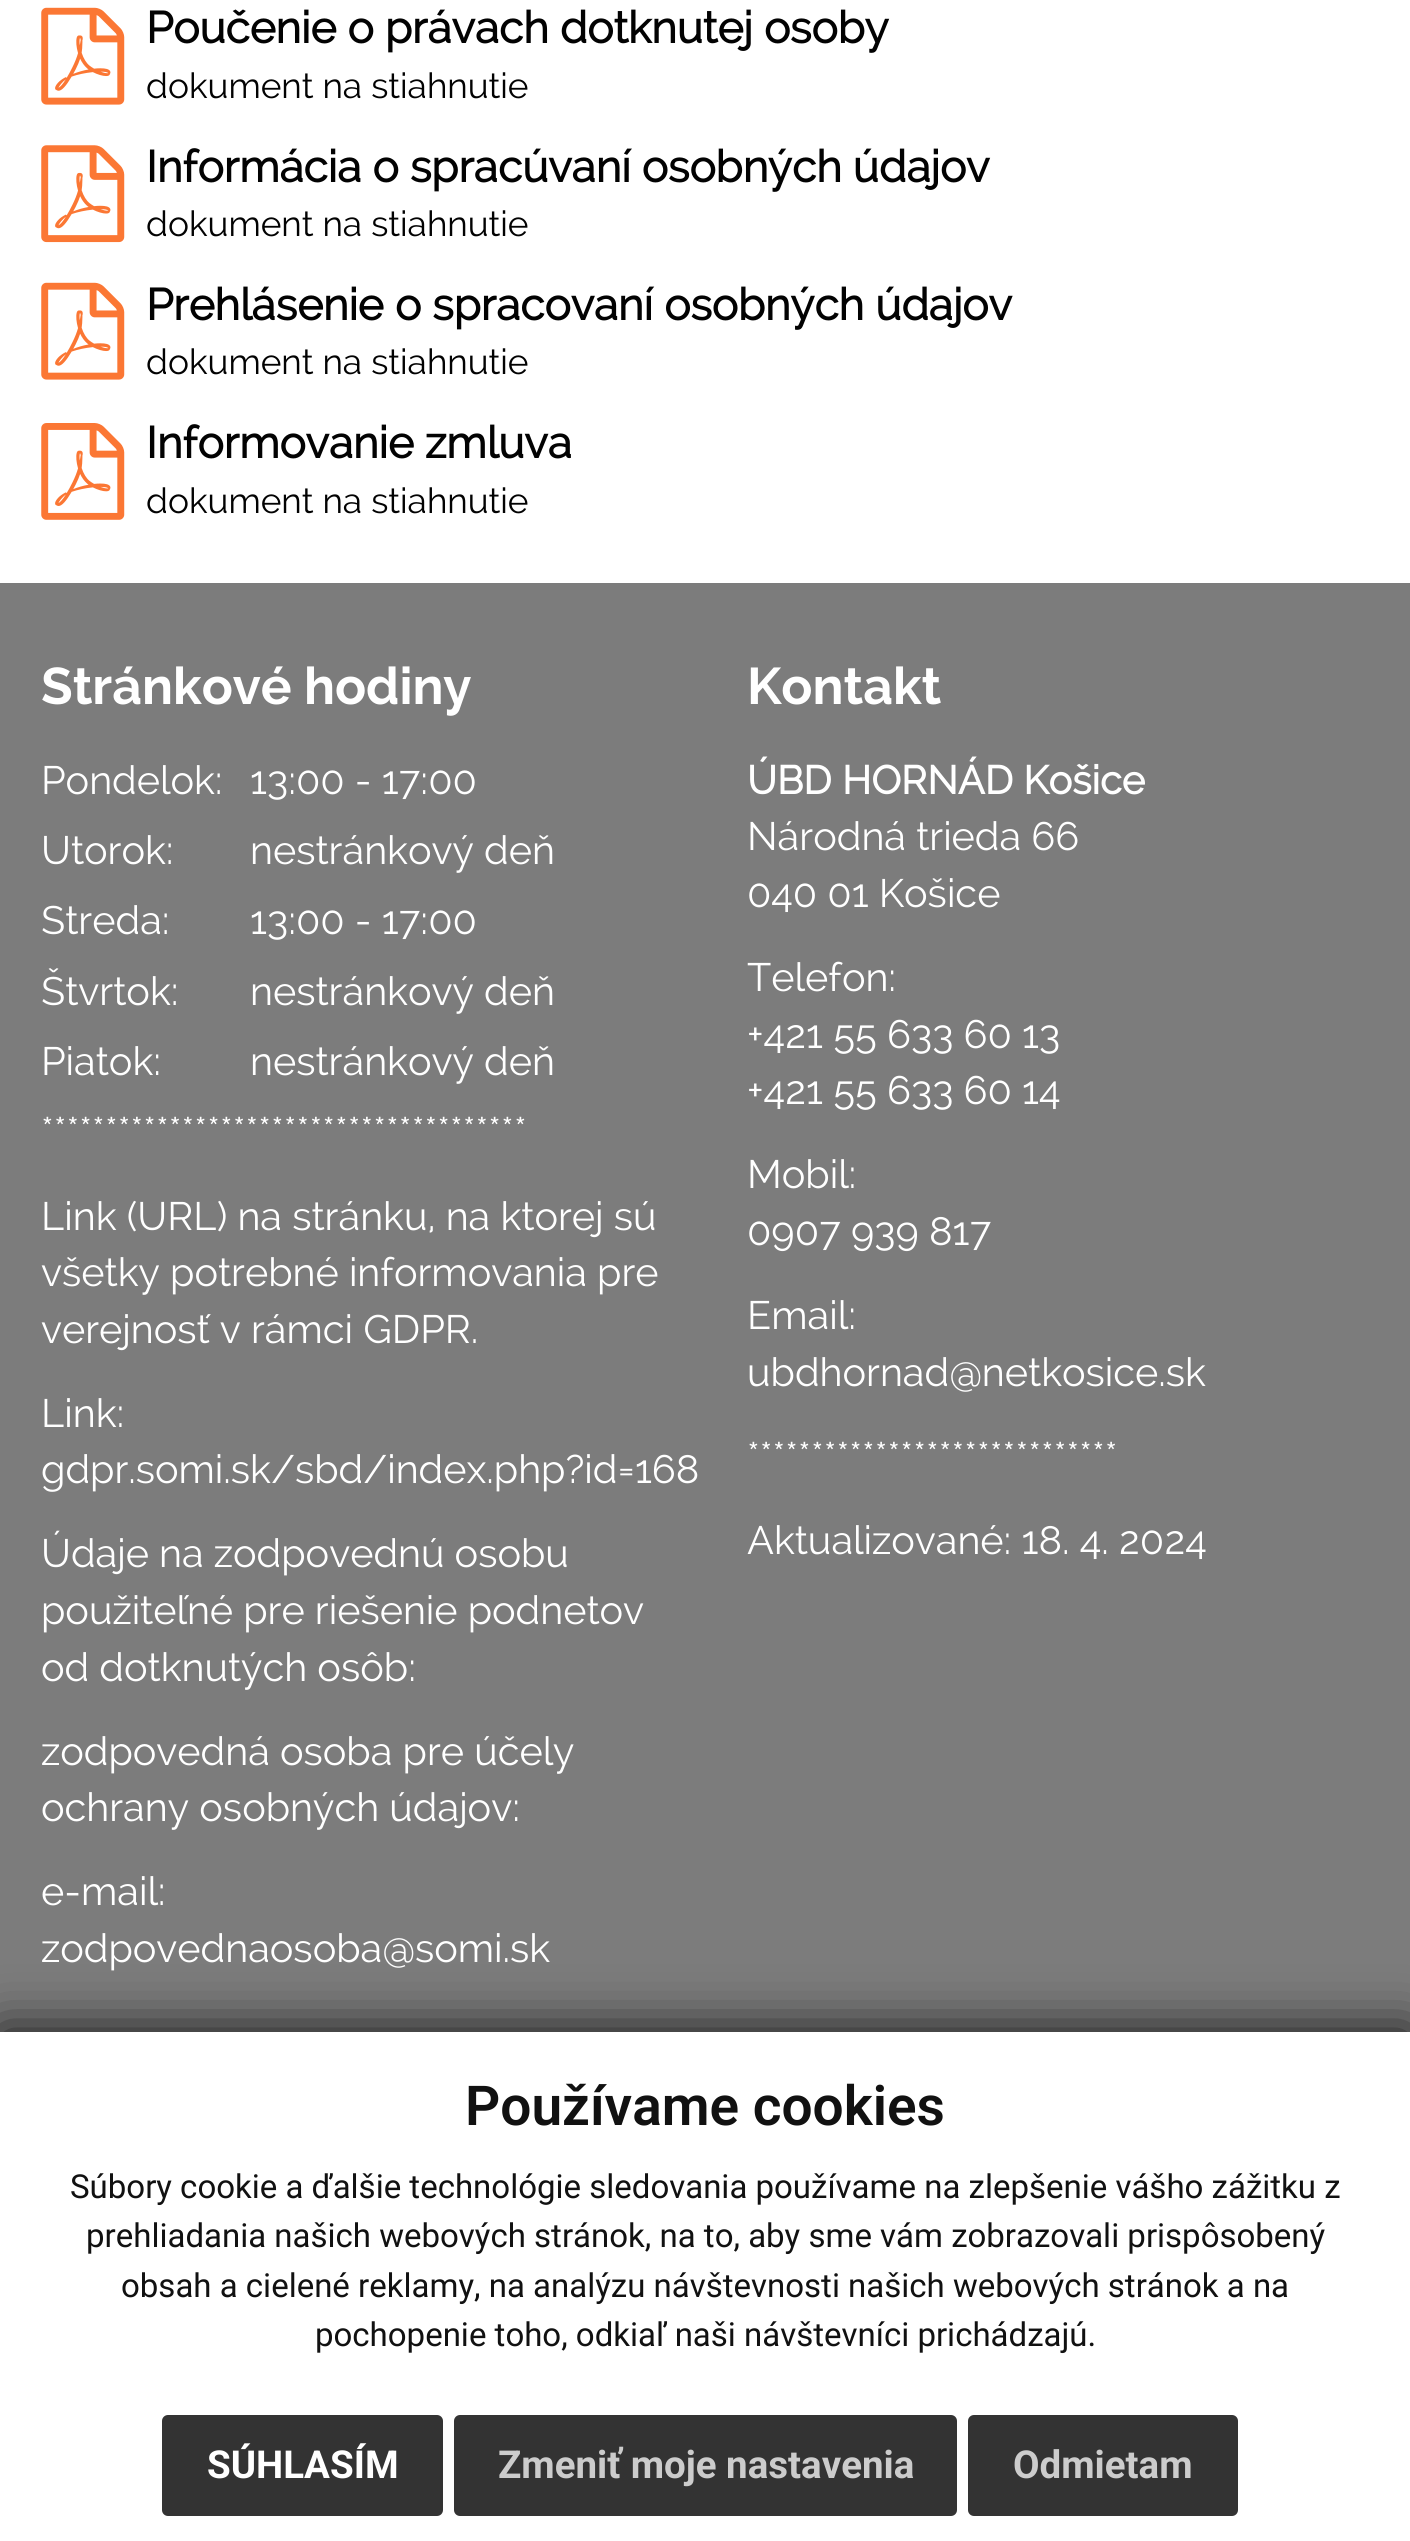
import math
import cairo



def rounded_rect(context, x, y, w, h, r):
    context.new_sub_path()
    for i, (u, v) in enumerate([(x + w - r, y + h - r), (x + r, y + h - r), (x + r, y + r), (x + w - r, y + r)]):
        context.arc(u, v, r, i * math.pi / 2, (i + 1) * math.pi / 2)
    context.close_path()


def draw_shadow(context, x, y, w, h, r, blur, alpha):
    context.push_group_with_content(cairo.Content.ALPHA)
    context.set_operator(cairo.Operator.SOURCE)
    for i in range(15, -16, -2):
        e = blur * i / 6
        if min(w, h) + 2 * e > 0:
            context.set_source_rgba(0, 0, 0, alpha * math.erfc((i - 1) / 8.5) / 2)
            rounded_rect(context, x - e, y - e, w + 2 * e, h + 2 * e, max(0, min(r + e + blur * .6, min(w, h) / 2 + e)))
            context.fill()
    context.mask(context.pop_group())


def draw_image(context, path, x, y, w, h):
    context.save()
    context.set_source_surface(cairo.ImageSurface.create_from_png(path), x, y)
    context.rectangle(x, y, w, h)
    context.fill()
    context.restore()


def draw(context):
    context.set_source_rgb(1, 1, 1)
    context.paint()
    draw_image(context, "images/1.png", 41, 7, 84, 98)
    draw_image(context, "images/2.png", 41, 145, 84, 98)
    draw_image(context, "images/1.png", 41, 282, 84, 98)
    draw_image(context, "images/3.png", 41, 423, 84, 97)
    context.set_source_rgb(124 / 255, 124 / 255, 124 / 255)
    context.rectangle(0, 583, 1410, 1449)
    context.fill()
    context.set_source_rgb(17 / 255, 17 / 255, 17 / 255)
    draw_shadow(context, 0, 2032, 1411, 509, 0, 27.5, 1)
    context.set_source_rgb(1, 1, 1)
    context.rectangle(0, 2032, 1410, 509)
    context.fill()
    context.set_source_rgb(51 / 255, 51 / 255, 51 / 255)
    rounded_rect(context, 162, 2415, 281, 101, 6)
    context.fill()
    rounded_rect(context, 454, 2415, 503, 101, 6)
    context.fill()
    rounded_rect(context, 968, 2415, 270, 101, 6)
    context.fill()
    context.select_font_face("Raleway", cairo.FontSlant.NORMAL, cairo.FontWeight.BOLD)
    context.set_font_size(44)
    context.set_source_rgb(2 / 255, 2 / 255, 2 / 255)
    context.move_to(146, 43)
    context.show_text("Poučenie o právach dotknutej osoby")
    context.select_font_face("Raleway")
    context.set_font_size(35.25)
    context.move_to(146, 98)
    context.show_text("dokument na stiahnutie")
    context.select_font_face("Raleway", cairo.FontSlant.NORMAL, cairo.FontWeight.BOLD)
    context.set_font_size(44)
    context.move_to(146, 182)
    context.show_text("Informácia o spracúvaní osobných údajov")
    context.select_font_face("Raleway")
    context.set_font_size(35.25)
    context.move_to(146, 236)
    context.show_text("dokument na stiahnutie")
    context.select_font_face("Raleway", cairo.FontSlant.NORMAL, cairo.FontWeight.BOLD)
    context.set_font_size(44)
    context.move_to(146, 320)
    context.show_text("Prehlásenie o spracovaní osobných údajov")
    context.select_font_face("Raleway")
    context.set_font_size(35.25)
    context.move_to(146, 374)
    context.show_text("dokument na stiahnutie")
    context.select_font_face("Raleway", cairo.FontSlant.NORMAL, cairo.FontWeight.BOLD)
    context.set_font_size(44)
    context.move_to(146, 458)
    context.show_text("Informovanie zmluva")
    context.select_font_face("Raleway")
    context.set_font_size(35.25)
    context.move_to(146, 513)
    context.show_text("dokument na stiahnutie")
    context.select_font_face("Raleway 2", cairo.FontSlant.NORMAL, cairo.FontWeight.BOLD)
    context.set_font_size(51.5)
    context.set_source_rgb(1, 1, 1)
    context.move_to(41, 704)
    context.show_text("Stránkové hodiny")
    context.select_font_face("Raleway")
    context.set_font_size(39.6)
    context.move_to(41, 794)
    context.show_text("Pondelok:")
    context.move_to(250, 794)
    context.show_text("13:00 - 17:00")
    context.move_to(41, 864)
    context.show_text("Utorok:")
    context.move_to(250, 864)
    context.show_text("nestránkový deň")
    context.move_to(41, 934)
    context.show_text("Streda:")
    context.move_to(250, 934)
    context.show_text("13:00 - 17:00")
    context.move_to(41, 1005)
    context.show_text("Štvrtok:")
    context.move_to(250, 1005)
    context.show_text("nestránkový deň")
    context.move_to(41, 1075)
    context.show_text("Piatok:")
    context.move_to(250, 1075)
    context.show_text("nestránkový deň")
    context.move_to(41, 1145)
    context.show_text("**************************************")
    context.move_to(41, 1230)
    context.show_text("Link (URL) na stránku, na ktorej sú")
    context.move_to(41, 1286)
    context.show_text("všetky potrebné informovania pre")
    context.move_to(41, 1343)
    context.show_text("verejnosť v rámci GDPR.")
    context.move_to(41, 1427)
    context.show_text("Link:")
    context.move_to(41, 1483)
    context.show_text("gdpr.somi.sk/sbd/index.php?id=168")
    context.move_to(41, 1567)
    context.show_text("Údaje na zodpovednú osobu")
    context.move_to(41, 1624)
    context.show_text("použiteľné pre riešenie podnetov")
    context.move_to(41, 1681)
    context.show_text("od dotknutých osôb:")
    context.move_to(41, 1765)
    context.show_text("zodpovedná osoba pre účely")
    context.move_to(41, 1821)
    context.show_text("ochrany osobných údajov:")
    context.move_to(41, 1905)
    context.show_text("e-mail:")
    context.move_to(41, 1962)
    context.show_text("zodpovednaosoba@somi.sk")
    context.select_font_face("Raleway 2", cairo.FontSlant.NORMAL, cairo.FontWeight.BOLD)
    context.set_font_size(51.5)
    context.move_to(747, 704)
    context.show_text("Kontakt")
    context.select_font_face("Raleway", cairo.FontSlant.NORMAL, cairo.FontWeight.BOLD)
    context.set_font_size(39.6)
    context.move_to(747, 794)
    context.show_text("ÚBD HORNÁD Košice")
    context.select_font_face("Raleway")
    context.move_to(747, 850)
    context.show_text("Národná trieda 66")
    context.move_to(747, 907)
    context.show_text("040 01 Košice")
    context.move_to(747, 991)
    context.show_text("Telefon:")
    context.move_to(747, 1048)
    context.show_text("+421 55 633 60 13")
    context.move_to(747, 1104)
    context.show_text("+421 55 633 60 14")
    context.move_to(747, 1188)
    context.show_text("Mobil:")
    context.move_to(747, 1245)
    context.show_text("0907 939 817")
    context.move_to(747, 1329)
    context.show_text("Email:")
    context.move_to(747, 1386)
    context.show_text("ubdhornad@netkosice.sk")
    context.move_to(747, 1470)
    context.show_text("*****************************")
    context.move_to(747, 1554)
    context.show_text("Aktualizované: 18. 4. 2024")
    context.select_font_face("Roboto SemiBold")
    context.set_font_size(55)
    context.set_source_rgb(17 / 255, 17 / 255, 17 / 255)
    context.move_to(465, 2125)
    context.show_text("Používame cookies")
    context.select_font_face("Roboto")
    context.set_font_size(33)
    context.move_to(70, 2198)
    context.show_text("Súbory cookie a ďalšie technológie sledovania používame na zlepšenie vášho zážitku z")
    context.move_to(86, 2247)
    context.show_text("prehliadania našich webových stránok, na to, aby sme vám zobrazovali prispôsobený")
    context.move_to(121, 2297)
    context.show_text("obsah a cielené reklamy, na analýzu návštevnosti našich webových stránok a na")
    context.move_to(315, 2346)
    context.show_text("pochopenie toho, odkiaľ naši návštevníci prichádzajú.")
    context.select_font_face("Roboto", cairo.FontSlant.NORMAL, cairo.FontWeight.BOLD)
    context.set_font_size(38.5)
    context.set_source_rgb(1, 1, 1)
    context.move_to(207, 2478)
    context.show_text("SÚHLASÍM")
    context.set_source_rgb(204 / 255, 204 / 255, 204 / 255)
    context.move_to(498, 2478)
    context.show_text("Zmeniť moje nastavenia")
    context.move_to(1013, 2478)
    context.show_text("Odmietam")


surface = cairo.ImageSurface(cairo.Format.RGB24, 1410, 2541)
context = cairo.Context(surface)
options = cairo.FontOptions()
options.set_hint_metrics(cairo.HintMetrics.OFF)
options.set_hint_style(cairo.HintStyle.NONE)
context.set_font_options(options)
context.set_miter_limit(4)
draw(context)
surface.write_to_png("out.png")
